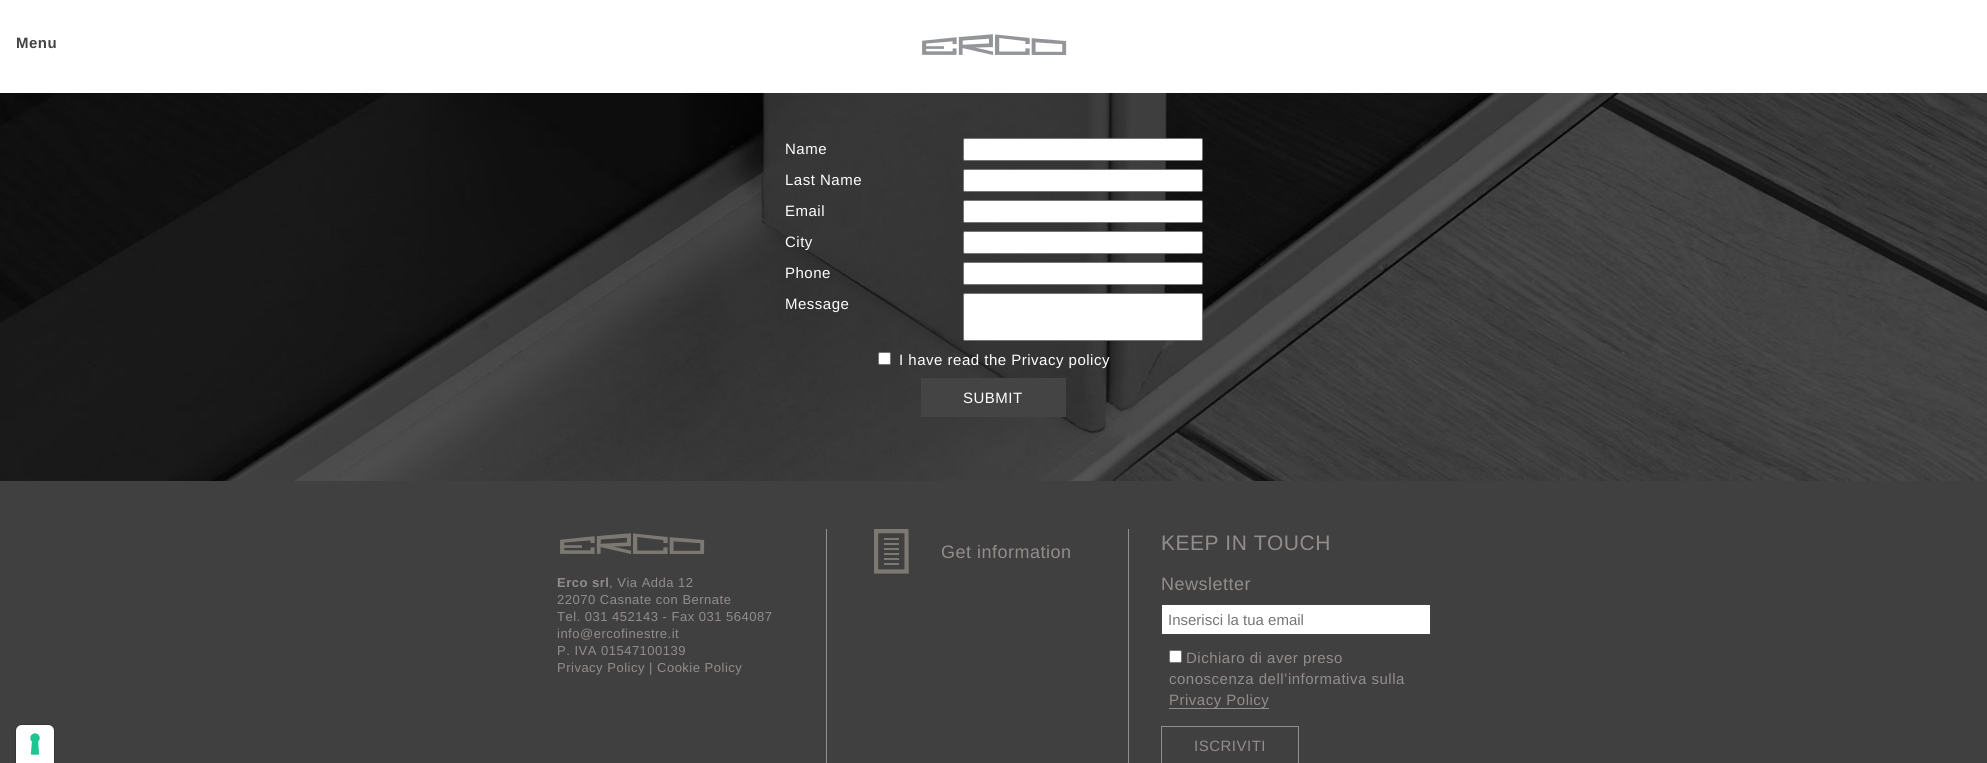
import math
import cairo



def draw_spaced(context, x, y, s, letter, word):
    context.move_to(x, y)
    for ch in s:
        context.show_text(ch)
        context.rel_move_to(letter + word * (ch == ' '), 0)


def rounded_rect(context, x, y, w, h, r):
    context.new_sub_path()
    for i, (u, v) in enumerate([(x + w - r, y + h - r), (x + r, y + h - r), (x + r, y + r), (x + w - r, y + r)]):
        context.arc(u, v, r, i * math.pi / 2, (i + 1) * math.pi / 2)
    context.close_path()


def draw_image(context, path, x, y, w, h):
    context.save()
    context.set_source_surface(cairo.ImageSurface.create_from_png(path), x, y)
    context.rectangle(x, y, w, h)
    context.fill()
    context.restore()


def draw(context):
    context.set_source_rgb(1, 1, 1)
    context.paint()
    draw_image(context, "images/1.png", 922, 34, 145, 21)
    draw_image(context, "images/4.png", 0, 93, 1987, 388)
    context.set_source_rgb(1, 1, 1)
    rounded_rect(context, 963.5, 138.5, 239, 22, 1.5)
    context.fill_preserve()
    context.set_source_rgb(118 / 255, 118 / 255, 118 / 255)
    context.set_line_width(1)
    context.stroke()
    context.set_source_rgb(1, 1, 1)
    rounded_rect(context, 963.5, 169.5, 239, 22, 1.5)
    context.fill_preserve()
    context.set_source_rgb(118 / 255, 118 / 255, 118 / 255)
    context.stroke()
    context.set_source_rgb(1, 1, 1)
    rounded_rect(context, 963.5, 200.5, 239, 22, 1.5)
    context.fill_preserve()
    context.set_source_rgb(118 / 255, 118 / 255, 118 / 255)
    context.stroke()
    context.set_source_rgb(1, 1, 1)
    rounded_rect(context, 963.5, 231.5, 239, 22, 1.5)
    context.fill_preserve()
    context.set_source_rgb(118 / 255, 118 / 255, 118 / 255)
    context.stroke()
    context.set_source_rgb(1, 1, 1)
    rounded_rect(context, 963.5, 262.5, 239, 22, 1.5)
    context.fill_preserve()
    context.set_source_rgb(118 / 255, 118 / 255, 118 / 255)
    context.stroke()
    context.set_source_rgb(1, 1, 1)
    rounded_rect(context, 963.5, 293.5, 239, 47, 1.5)
    context.fill_preserve()
    context.set_source_rgb(118 / 255, 118 / 255, 118 / 255)
    context.stroke()
    context.set_source_rgb(1, 1, 1)
    rounded_rect(context, 878.5, 352.5, 12, 12, 1.5)
    context.fill_preserve()
    context.set_source_rgb(118 / 255, 118 / 255, 118 / 255)
    context.stroke()
    context.set_source_rgb(68 / 255, 68 / 255, 68 / 255)
    context.rectangle(921, 378, 145, 39)
    context.fill()
    context.set_source_rgb(64 / 255, 64 / 255, 65 / 255)
    context.rectangle(0, 481, 1987, 282)
    context.fill()
    context.set_source_rgb(146 / 255, 141 / 255, 138 / 255)
    context.rectangle(1128, 529, 1, 234)
    context.fill()
    draw_image(context, "images/2.png", 874, 529, 35, 45)
    context.set_source_rgb(1, 1, 1)
    context.rectangle(1161.5, 604.5, 269, 30)
    context.fill_preserve()
    context.set_source_rgb(68 / 255, 68 / 255, 68 / 255)
    context.stroke()
    context.set_source_rgb(1, 1, 1)
    rounded_rect(context, 1169.5, 650.5, 12, 12, 1.5)
    context.fill_preserve()
    context.set_source_rgb(118 / 255, 118 / 255, 118 / 255)
    context.stroke()
    context.set_source_rgb(146 / 255, 141 / 255, 138 / 255)
    context.rectangle(1169, 708, 100, 1)
    context.fill()
    context.rectangle(1161.5, 726.5, 137, 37)
    context.stroke()
    context.rectangle(826, 529, 1, 234)
    context.fill()
    draw_image(context, "images/3.png", 560, 533, 145, 21)
    context.new_path()
    context.move_to(22, 724.5)
    context.line_to(48, 724.5)
    context.curve_to(51.5, 724.5, 54.5, 727.5, 54.5, 731)
    context.line_to(54.5, 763.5)
    context.line_to(15.5, 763.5)
    context.line_to(15.5, 731)
    context.curve_to(15.5, 727.5, 18.5, 724.5, 22, 724.5)
    context.close_path()
    context.set_source_rgb(54 / 255, 54 / 255, 55 / 255)
    context.stroke()
    context.set_source_rgb(1, 1, 1)
    context.new_path()
    context.move_to(22, 725)
    context.line_to(48, 725)
    context.curve_to(51.5, 725, 54, 727.5, 54, 731)
    context.line_to(54, 763)
    context.line_to(16, 763)
    context.line_to(16, 731)
    context.curve_to(16, 727.5, 18.5, 725, 22, 725)
    context.close_path()
    context.fill()
    draw_image(context, "images/5.png", 30, 733, 10, 22)
    context.select_font_face("Liberation Sans", cairo.FontSlant.NORMAL, cairo.FontWeight.BOLD)
    context.set_font_size(15)
    context.set_source_rgb(68 / 255, 68 / 255, 68 / 255)
    draw_spaced(context, 16, 48, "Menu", 0.5, 0)
    context.select_font_face("Liberation Sans")
    context.set_source_rgb(1, 1, 1)
    draw_spaced(context, 785, 154, "Name", 0.5, 0)
    draw_spaced(context, 785, 185, "Last Name", 0.5, 0)
    draw_spaced(context, 785, 216, "Email", 0.5, 0)
    draw_spaced(context, 785, 247, "City", 0.5, 0)
    draw_spaced(context, 785, 278, "Phone", 0.5, 0)
    draw_spaced(context, 785, 309, "Message", 0.5, 0)
    draw_spaced(context, 899, 365, "I have read the Privacy policy", 0.5, 0)
    draw_spaced(context, 963, 403, "SUBMIT", 0.5, 0)
    context.set_font_size(18)
    context.set_source_rgb(146 / 255, 141 / 255, 138 / 255)
    draw_spaced(context, 941, 558, "Get information", 0.5, 0)
    context.set_font_size(21)
    draw_spaced(context, 1161, 550, "KEEP IN TOUCH", 0.5, 0)
    context.set_font_size(18)
    draw_spaced(context, 1161, 590, "Newsletter", 0.5, 0)
    context.set_font_size(15)
    context.set_source_rgb(117 / 255, 117 / 255, 117 / 255)
    context.move_to(1168, 625)
    context.show_text("Inserisci la tua email")
    context.set_source_rgb(146 / 255, 141 / 255, 138 / 255)
    draw_spaced(context, 1186, 663, "Dichiaro di aver preso", 0.5, 0)
    draw_spaced(context, 1169, 684, "conoscenza dell’informativa sulla", 0.5, 0)
    draw_spaced(context, 1169, 705, "Privacy Policy", 0.5, 0)
    draw_spaced(context, 1194, 751, "ISCRIVITI", 0.5, 0)
    context.select_font_face("Liberation Sans", cairo.FontSlant.NORMAL, cairo.FontWeight.BOLD)
    context.set_font_size(13)
    draw_spaced(context, 557, 587, "Erco srl", 0.5, 0)
    context.select_font_face("Liberation Sans")
    draw_spaced(context, 609, 587, ", Via Adda 12", 0.5, 0)
    draw_spaced(context, 557, 604, "22070 Casnate con Bernate", 0.5, 0)
    draw_spaced(context, 557, 621, "Tel. 031 452143 - Fax 031 564087", 0.5, 0)
    draw_spaced(context, 557, 638, "info@ercofinestre.it", 0.5, 0)
    draw_spaced(context, 557, 655, "P. IVA 01547100139", 0.5, 0)
    draw_spaced(context, 557, 672, "Privacy Policy | Cookie Policy", 0.5, 0)


surface = cairo.ImageSurface(cairo.Format.RGB24, 1987, 763)
context = cairo.Context(surface)
options = cairo.FontOptions()
options.set_hint_metrics(cairo.HintMetrics.OFF)
options.set_hint_style(cairo.HintStyle.NONE)
context.set_font_options(options)
context.set_miter_limit(4)
draw(context)
surface.write_to_png("out.png")
